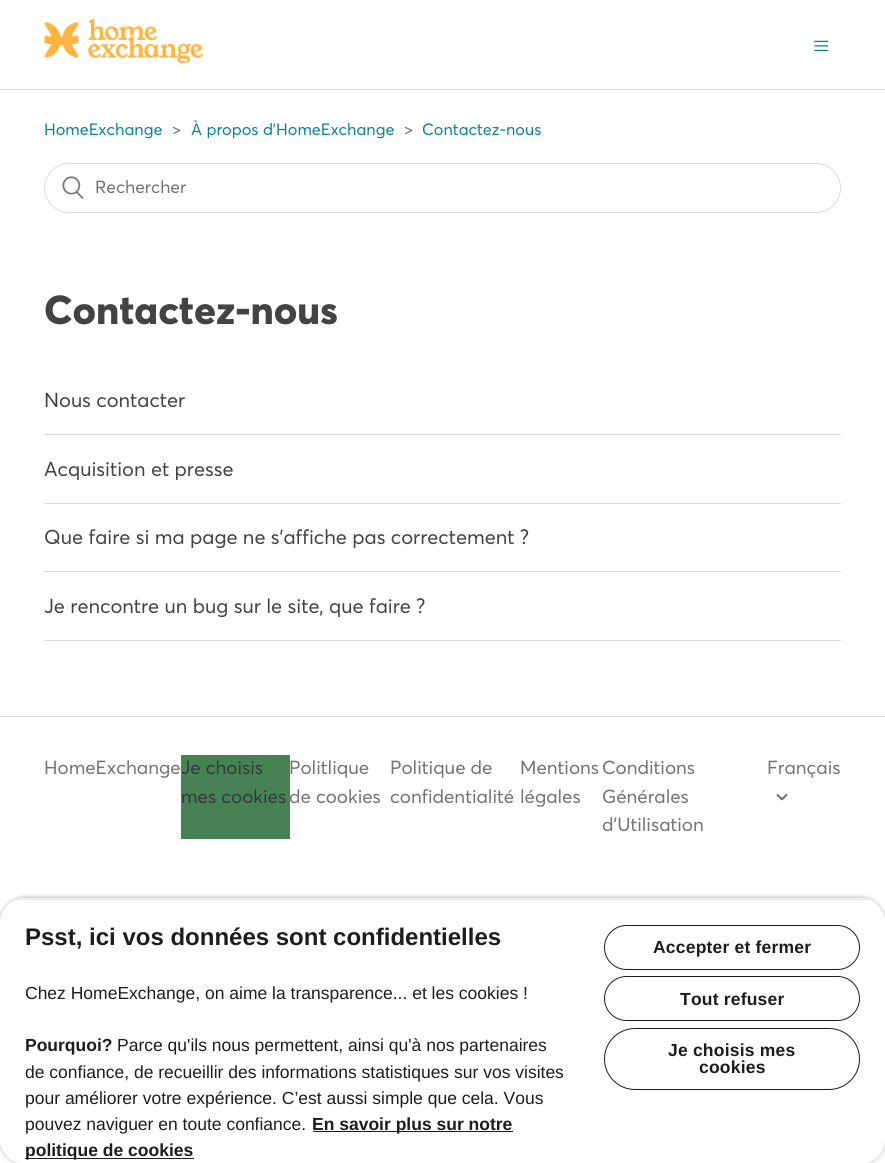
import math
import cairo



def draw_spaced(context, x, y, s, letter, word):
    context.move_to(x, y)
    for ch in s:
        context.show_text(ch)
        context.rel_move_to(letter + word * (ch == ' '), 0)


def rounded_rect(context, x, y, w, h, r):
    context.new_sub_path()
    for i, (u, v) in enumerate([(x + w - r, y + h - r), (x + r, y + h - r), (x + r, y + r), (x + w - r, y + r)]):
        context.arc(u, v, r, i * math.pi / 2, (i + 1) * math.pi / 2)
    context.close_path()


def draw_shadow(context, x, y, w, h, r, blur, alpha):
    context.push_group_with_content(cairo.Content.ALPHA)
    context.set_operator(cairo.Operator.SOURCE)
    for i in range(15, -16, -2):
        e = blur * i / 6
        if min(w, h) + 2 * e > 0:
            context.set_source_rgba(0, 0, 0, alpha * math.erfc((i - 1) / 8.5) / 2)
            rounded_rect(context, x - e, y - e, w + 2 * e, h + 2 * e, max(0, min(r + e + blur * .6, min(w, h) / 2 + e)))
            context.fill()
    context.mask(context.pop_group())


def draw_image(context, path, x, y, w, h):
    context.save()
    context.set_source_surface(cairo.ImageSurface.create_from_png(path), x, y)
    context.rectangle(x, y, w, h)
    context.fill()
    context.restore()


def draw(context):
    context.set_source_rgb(1, 1, 1)
    context.paint()
    draw_image(context, "images/1.png", 43, 17, 161, 47)
    draw_image(context, "images/2.png", 814, 40, 15, 12)
    context.set_source_rgb(221 / 255, 221 / 255, 221 / 255)
    context.rectangle(0, 89, 885, 1)
    context.fill()
    rounded_rect(context, 44.5, 163.5, 796, 49, 24.5)
    context.set_line_width(1)
    context.stroke()
    draw_image(context, "images/3.png", 62, 176, 22, 23)
    context.rectangle(44, 434, 797, 1)
    context.fill()
    context.rectangle(44, 503, 797, 1)
    context.fill()
    context.rectangle(44, 571, 797, 1)
    context.fill()
    context.rectangle(44, 640, 797, 1)
    context.fill()
    context.rectangle(0, 716, 885, 1)
    context.fill()
    context.set_source_rgb(70 / 255, 130 / 255, 84 / 255)
    context.rectangle(181, 755, 109, 84)
    context.fill()
    draw_image(context, "images/4.png", 776, 794, 12, 7)
    context.save()
    context.set_fill_rule(cairo.FillRule.EVEN_ODD)
    context.new_path()
    context.move_to(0, 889)
    context.line_to(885, 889)
    context.line_to(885, 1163)
    context.line_to(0, 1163)
    context.close_path()
    context.move_to(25, 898)
    context.line_to(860, 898)
    context.curve_to(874, 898, 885, 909, 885, 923)
    context.line_to(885, 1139)
    context.curve_to(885, 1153, 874, 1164, 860, 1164)
    context.line_to(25, 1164)
    context.curve_to(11, 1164, 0, 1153, 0, 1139)
    context.line_to(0, 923)
    context.curve_to(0, 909, 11, 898, 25, 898)
    context.close_path()
    context.clip()
    context.set_source_rgb(0, 0, 0)
    draw_shadow(context, 0, 898, 885, 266, 25, 2.5, 0.35)
    context.restore()
    context.save()
    rounded_rect(context, 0, 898, 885, 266, 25)
    context.clip()
    context.set_source_rgb(0, 0, 0)
    draw_shadow(context, 0, 900, 885, 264, 0, 2.5, 0.2)
    context.restore()
    context.save()
    rounded_rect(context, 0, 898, 885, 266, 25)
    context.clip()
    context.set_source_rgb(1, 1, 1)
    context.new_path()
    context.move_to(0, 900)
    context.line_to(885, 900)
    context.line_to(885, 1139)
    context.curve_to(885, 1153, 874, 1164, 860, 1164)
    context.line_to(25, 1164)
    context.curve_to(11, 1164, 0, 1153, 0, 1139)
    context.close_path()
    context.fill()
    context.restore()
    context.set_source_rgb(30 / 255, 29 / 255, 29 / 255)
    context.rectangle(313, 1131, 200, 1)
    context.fill()
    context.rectangle(25, 1158, 169, 1)
    context.fill()
    rounded_rect(context, 604.5, 925.5, 255, 44, 22)
    context.stroke()
    rounded_rect(context, 604.5, 976.5, 255, 44, 22)
    context.stroke()
    rounded_rect(context, 604.5, 1028.5, 255, 61, 30.5)
    context.stroke()
    context.select_font_face("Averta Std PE")
    context.set_font_size(16.25)
    context.set_source_rgb(6 / 255, 130 / 255, 149 / 255)
    context.move_to(44, 135)
    context.show_text("HomeExchange")
    context.set_source_rgb(114 / 255, 114 / 255, 114 / 255)
    context.move_to(172, 135)
    context.show_text(">")
    context.set_source_rgb(6 / 255, 130 / 255, 149 / 255)
    context.move_to(191, 135)
    context.show_text("À propos d'HomeExchange")
    context.set_source_rgb(114 / 255, 114 / 255, 114 / 255)
    context.move_to(404, 135)
    context.show_text(">")
    context.set_source_rgb(6 / 255, 130 / 255, 149 / 255)
    context.move_to(422, 135)
    context.show_text("Contactez-nous")
    context.set_font_size(17.5)
    context.set_source_rgb(114 / 255, 114 / 255, 114 / 255)
    context.move_to(95, 193)
    context.show_text("Rechercher")
    context.select_font_face("Averta Std PE ExtraBold")
    context.set_font_size(40)
    context.set_source_rgb(67 / 255, 67 / 255, 67 / 255)
    context.move_to(44, 324)
    context.show_text("Contactez-nous")
    context.select_font_face("Averta Std PE")
    context.set_font_size(20)
    context.move_to(44, 407)
    context.show_text("Nous contacter")
    context.move_to(44, 476)
    context.show_text("Acquisition et presse")
    context.move_to(44, 544)
    context.show_text("Que faire si ma page ne s'affiche pas correctement ?")
    context.move_to(44, 613)
    context.show_text("Je rencontre un bug sur le site, que faire ?")
    context.set_font_size(18.75)
    context.set_source_rgb(114 / 255, 114 / 255, 114 / 255)
    context.move_to(44, 774)
    context.show_text("HomeExchange")
    context.set_source_rgb(53 / 255, 57 / 255, 54 / 255)
    context.move_to(181, 774)
    context.show_text("Je choisis")
    context.move_to(181, 803)
    context.show_text("mes cookies")
    context.set_source_rgb(114 / 255, 114 / 255, 114 / 255)
    context.move_to(289, 774)
    context.show_text("Politlique")
    context.move_to(289, 803)
    context.show_text("de cookies")
    context.move_to(390, 774)
    context.show_text("Politique de")
    context.move_to(390, 803)
    context.show_text("confidentialité")
    context.move_to(520, 774)
    context.show_text("Mentions")
    context.move_to(520, 803)
    context.show_text("légales")
    context.move_to(602, 774)
    context.show_text("Conditions")
    context.move_to(602, 803)
    context.show_text("Générales")
    context.move_to(602, 831)
    context.show_text("d'Utilisation")
    context.move_to(767, 774)
    context.show_text("Français")
    context.select_font_face("Liberation Sans", cairo.FontSlant.NORMAL, cairo.FontWeight.BOLD)
    context.set_font_size(24)
    context.set_source_rgb(30 / 255, 29 / 255, 29 / 255)
    context.move_to(25, 945)
    context.show_text("Psst, ici vos données sont confidentielles")
    context.select_font_face("Liberation Sans")
    context.set_font_size(17.5)
    context.move_to(25, 999)
    context.show_text("Chez HomeExchange, on aime la transparence... et les cookies !")
    context.select_font_face("Liberation Sans", cairo.FontSlant.NORMAL, cairo.FontWeight.BOLD)
    context.move_to(25, 1051)
    context.show_text("Pourquoi?")
    context.select_font_face("Liberation Sans")
    context.move_to(117, 1051)
    context.show_text("Parce qu'ils nous permettent, ainsi qu'à nos partenaires")
    context.move_to(25, 1078)
    context.show_text("de confiance, de recueillir des informations statistiques sur vos visites")
    context.move_to(25, 1104)
    context.show_text("pour améliorer votre expérience. C’est aussi simple que cela. Vous")
    context.move_to(25, 1130)
    context.show_text("pouvez naviguer en toute confiance.")
    context.select_font_face("Liberation Sans", cairo.FontSlant.NORMAL, cairo.FontWeight.BOLD)
    context.move_to(312, 1130)
    context.show_text("En savoir plus sur notre")
    context.move_to(25, 1156)
    context.show_text("politique de cookies")
    draw_spaced(context, 653, 953, "Accepter et fermer", 0.2, 0)
    draw_spaced(context, 680, 1005, "Tout refuser", 0.2, 0)
    draw_spaced(context, 668, 1056, "Je choisis mes", 0.2, 0)
    draw_spaced(context, 699, 1073, "cookies", 0.2, 0)


surface = cairo.ImageSurface(cairo.Format.RGB24, 885, 1163)
context = cairo.Context(surface)
options = cairo.FontOptions()
options.set_hint_metrics(cairo.HintMetrics.OFF)
options.set_hint_style(cairo.HintStyle.NONE)
context.set_font_options(options)
context.set_miter_limit(4)
draw(context)
surface.write_to_png("out.png")
